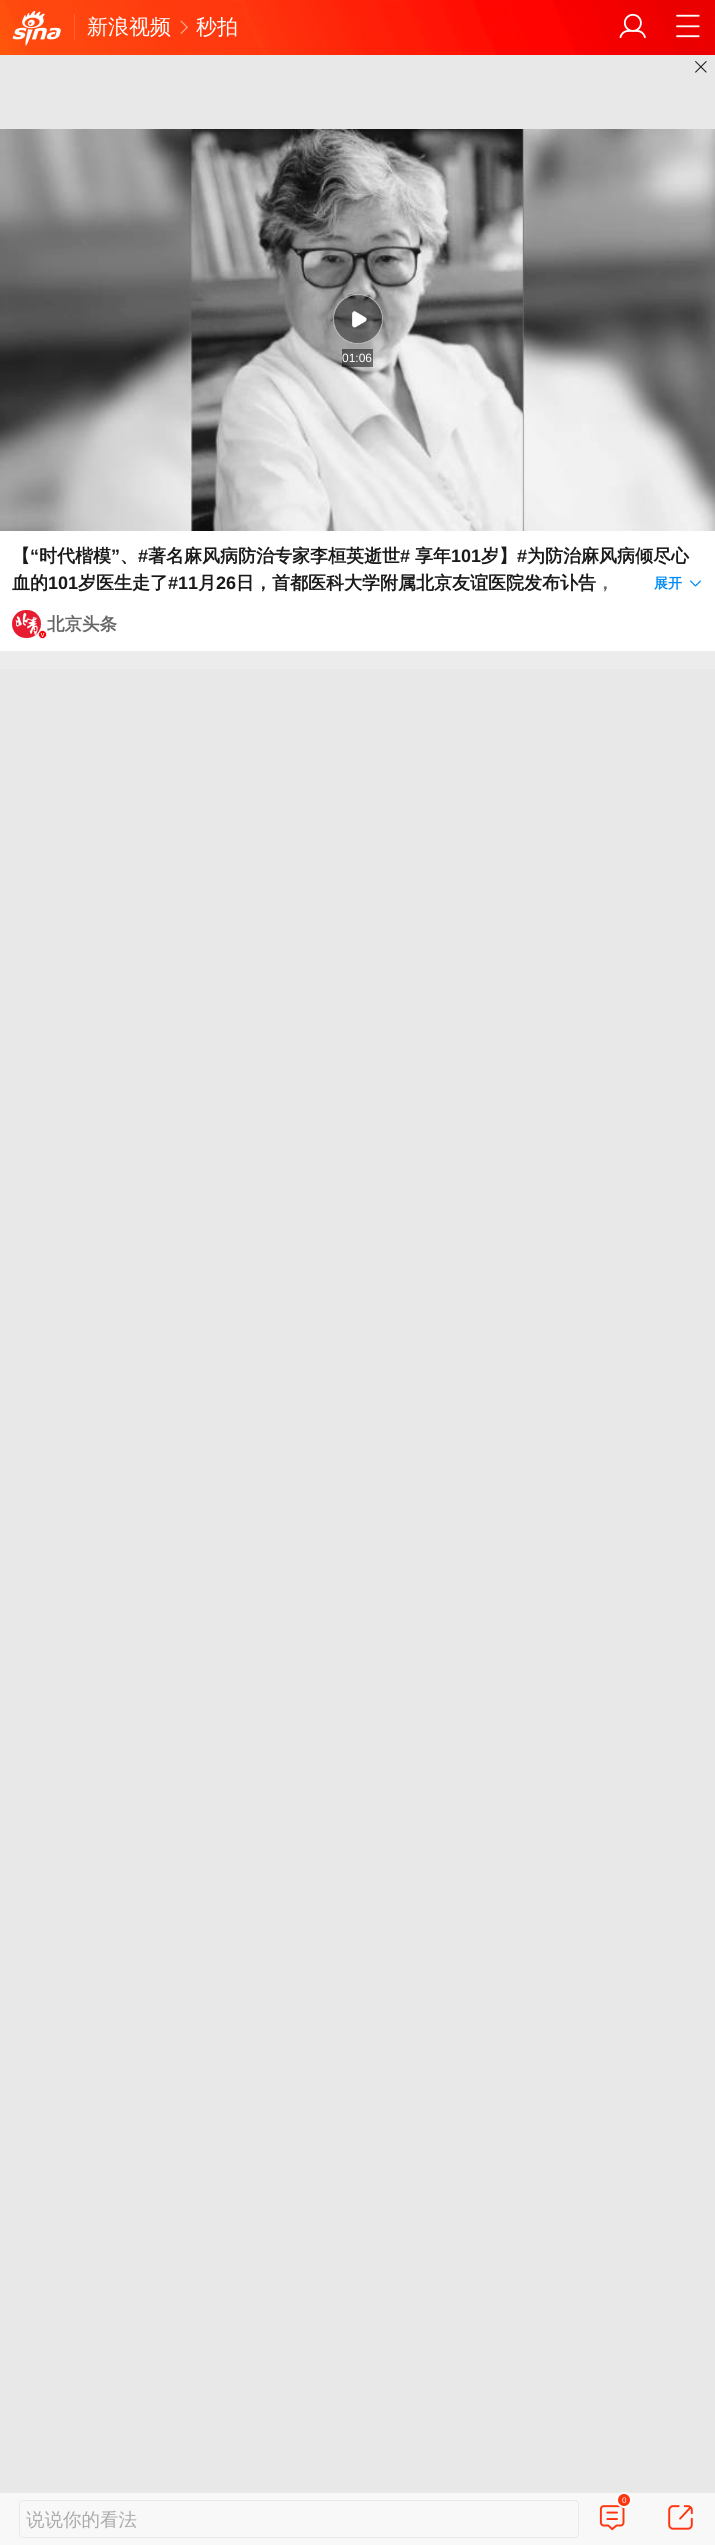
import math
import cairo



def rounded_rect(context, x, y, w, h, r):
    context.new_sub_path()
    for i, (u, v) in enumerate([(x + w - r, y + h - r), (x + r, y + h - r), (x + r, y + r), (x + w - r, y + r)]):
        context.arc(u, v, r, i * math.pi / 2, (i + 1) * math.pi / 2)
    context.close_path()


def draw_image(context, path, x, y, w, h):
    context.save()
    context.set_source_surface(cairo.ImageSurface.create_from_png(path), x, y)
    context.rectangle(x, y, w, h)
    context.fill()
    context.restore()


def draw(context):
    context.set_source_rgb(232 / 255, 232 / 255, 232 / 255)
    context.paint()
    draw_image(context, "images/1.png", 0, 0, 715, 55)
    draw_image(context, "images/2.png", 12, 11, 49, 35)
    context.set_source_rgba(1, 1, 1, 0.15)
    context.rectangle(74, 14, 1, 26)
    context.fill()
    draw_image(context, "images/3.png", 180, 20, 8, 14)
    draw_image(context, "images/4.png", 619, 13, 27, 26)
    draw_image(context, "images/5.png", 676, 14, 24, 24)
    draw_image(context, "images/6.png", 695, 61, 12, 12)
    context.set_source_rgb(1, 1, 1)
    context.rectangle(0, 531, 715, 120)
    context.fill()
    draw_image(context, "images/7.png", 0, 129, 715, 402)
    draw_image(context, "images/8.png", 333, 294, 50, 50)
    context.set_source_rgba(0, 0, 0, 0.5)
    context.rectangle(342, 349, 31, 18)
    context.fill()
    draw_image(context, "images/9.png", 690, 580, 11, 7)
    draw_image(context, "images/10.png", 12, 610, 29, 28)
    draw_image(context, "images/11.png", 38, 630, 9, 9)
    context.set_source_rgb(236 / 255, 236 / 255, 236 / 255)
    context.rectangle(0, 651, 715, 18)
    context.fill()
    context.set_source_rgb(248 / 255, 248 / 255, 248 / 255)
    context.rectangle(0, 2493, 715, 52)
    context.fill()
    draw_image(context, "images/12.png", 599, 2505, 26, 26)
    context.set_source_rgb(254 / 255, 53 / 255, 14 / 255)
    context.arc(624, 2500, 7, 0, 2 * math.pi)
    context.fill_preserve()
    context.set_source_rgb(1, 1, 1)
    context.stroke()
    draw_image(context, "images/13.png", 668, 2505, 25, 25)
    rounded_rect(context, 19.5, 2500.5, 559, 37, 3.5)
    context.set_source_rgb(233 / 255, 233 / 255, 233 / 255)
    context.set_line_width(1)
    context.stroke()
    context.select_font_face("WenQuanYi Zen Hei Medium")
    context.set_font_size(21)
    context.set_source_rgb(1, 1, 1)
    context.move_to(87, 34)
    context.show_text("新浪视频")
    context.move_to(196, 34)
    context.show_text("秒拍")
    context.select_font_face("Liberation Sans")
    context.set_font_size(12)
    context.move_to(342, 362)
    context.show_text("01:06")
    context.select_font_face("WenQuanYi Zen Hei", cairo.FontSlant.NORMAL, cairo.FontWeight.BOLD)
    context.set_font_size(18)
    context.set_source_rgb(26 / 255, 26 / 255, 26 / 255)
    context.move_to(12, 562)
    context.show_text("【")
    context.select_font_face("Liberation Sans", cairo.FontSlant.NORMAL, cairo.FontWeight.BOLD)
    context.move_to(30, 562)
    context.show_text("“")
    context.select_font_face("WenQuanYi Zen Hei", cairo.FontSlant.NORMAL, cairo.FontWeight.BOLD)
    context.move_to(39, 562)
    context.show_text("时代楷模")
    context.select_font_face("Liberation Sans", cairo.FontSlant.NORMAL, cairo.FontWeight.BOLD)
    context.move_to(111, 562)
    context.show_text("”")
    context.move_to(138, 562)
    context.show_text("#")
    context.select_font_face("WenQuanYi Zen Hei", cairo.FontSlant.NORMAL, cairo.FontWeight.BOLD)
    context.move_to(148, 562)
    context.show_text("著名麻风病防治专家李桓英逝世")
    context.select_font_face("Liberation Sans", cairo.FontSlant.NORMAL, cairo.FontWeight.BOLD)
    context.move_to(400, 562)
    context.show_text("#")
    context.select_font_face("WenQuanYi Zen Hei", cairo.FontSlant.NORMAL, cairo.FontWeight.BOLD)
    context.move_to(415, 562)
    context.show_text("享年")
    context.select_font_face("Liberation Sans", cairo.FontSlant.NORMAL, cairo.FontWeight.BOLD)
    context.move_to(451, 562)
    context.show_text("101")
    context.select_font_face("WenQuanYi Zen Hei", cairo.FontSlant.NORMAL, cairo.FontWeight.BOLD)
    context.move_to(481, 562)
    context.show_text("岁】")
    context.select_font_face("Liberation Sans", cairo.FontSlant.NORMAL, cairo.FontWeight.BOLD)
    context.move_to(517, 562)
    context.show_text("#")
    context.select_font_face("WenQuanYi Zen Hei", cairo.FontSlant.NORMAL, cairo.FontWeight.BOLD)
    context.move_to(527, 562)
    context.show_text("为防治麻风病倾尽心")
    context.move_to(120, 562)
    context.show_text("、")
    context.move_to(12, 589)
    context.show_text("血的")
    context.select_font_face("Liberation Sans", cairo.FontSlant.NORMAL, cairo.FontWeight.BOLD)
    context.move_to(48, 589)
    context.show_text("101")
    context.select_font_face("WenQuanYi Zen Hei", cairo.FontSlant.NORMAL, cairo.FontWeight.BOLD)
    context.move_to(78, 589)
    context.show_text("岁医生走了")
    context.select_font_face("Liberation Sans", cairo.FontSlant.NORMAL, cairo.FontWeight.BOLD)
    context.move_to(168, 589)
    context.show_text("#11")
    context.select_font_face("WenQuanYi Zen Hei", cairo.FontSlant.NORMAL, cairo.FontWeight.BOLD)
    context.move_to(198, 589)
    context.show_text("月")
    context.select_font_face("Liberation Sans", cairo.FontSlant.NORMAL, cairo.FontWeight.BOLD)
    context.move_to(216, 589)
    context.show_text("26")
    context.select_font_face("WenQuanYi Zen Hei", cairo.FontSlant.NORMAL, cairo.FontWeight.BOLD)
    context.move_to(236, 589)
    context.show_text("日，首都医科大学附属北京友谊医院发布讣告，")
    gradient = cairo.LinearGradient(592, 584, 703, 584)
    gradient.add_color_stop_rgba(0, 1, 1, 1, 0)
    gradient.add_color_stop_rgba(0.39, 1, 1, 1, 1)
    context.set_source(gradient)
    context.rectangle(593, 577, 14, 15)
    context.fill()
    context.set_font_size(14)
    context.set_source_rgb(0, 138 / 255, 245 / 255)
    context.move_to(654, 588)
    context.show_text("展开")
    context.set_font_size(17.5)
    context.set_source_rgb(102 / 255, 102 / 255, 102 / 255)
    context.move_to(47, 630)
    context.show_text("北京头条")
    context.select_font_face("Liberation Sans")
    context.set_font_size(8)
    context.set_source_rgb(1, 1, 1)
    context.move_to(622, 2503)
    context.show_text("0")
    context.select_font_face("WenQuanYi Zen Hei Medium")
    context.set_font_size(18.5)
    context.set_source_rgb(170 / 255, 170 / 255, 170 / 255)
    context.move_to(26, 2526)
    context.show_text("说说你的看法")


surface = cairo.ImageSurface(cairo.Format.RGB24, 715, 2545)
context = cairo.Context(surface)
options = cairo.FontOptions()
options.set_hint_metrics(cairo.HintMetrics.OFF)
options.set_hint_style(cairo.HintStyle.NONE)
context.set_font_options(options)
context.set_miter_limit(4)
draw(context)
surface.write_to_png("out.png")
